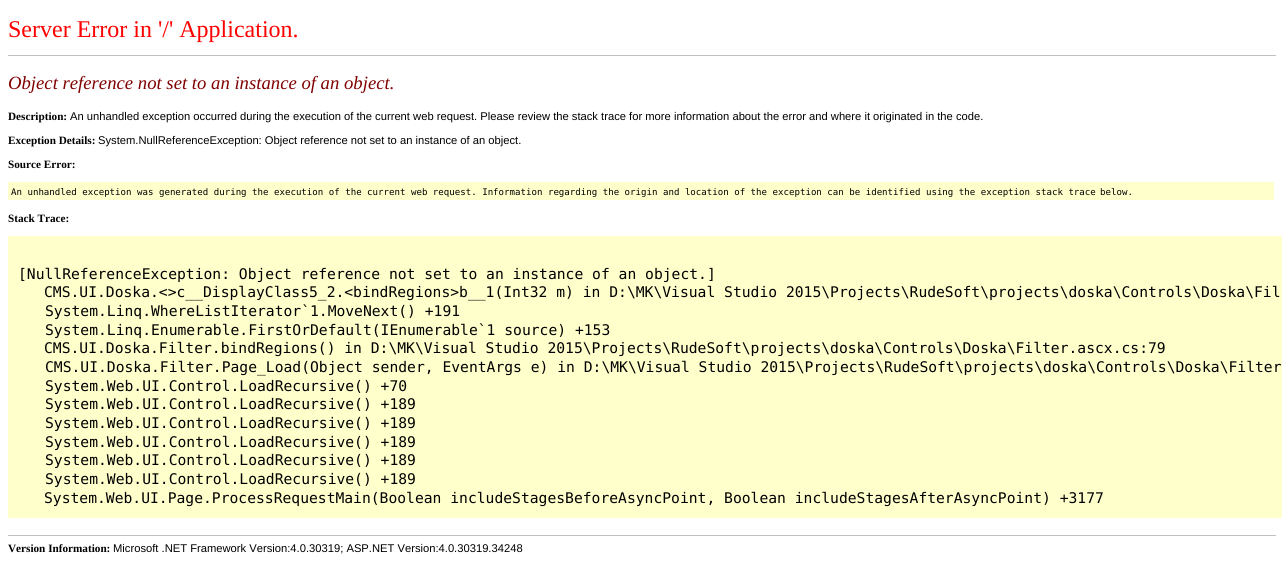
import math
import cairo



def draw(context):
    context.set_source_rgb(1, 1, 1)
    context.paint()
    context.set_source_rgb(192 / 255, 192 / 255, 192 / 255)
    context.rectangle(8, 55, 1268, 1)
    context.fill()
    context.set_source_rgb(1, 1, 204 / 255)
    context.rectangle(8, 182, 1266, 18)
    context.fill()
    context.rectangle(8, 236, 1274, 282)
    context.fill()
    context.set_source_rgb(192 / 255, 192 / 255, 192 / 255)
    context.rectangle(8, 535, 1268, 1)
    context.fill()
    context.select_font_face("Liberation Serif")
    context.set_font_size(24)
    context.set_source_rgb(1, 0, 0)
    context.move_to(8, 37)
    context.show_text("Server Error in '/' Application.")
    context.select_font_face("Liberation Serif", cairo.FontSlant.ITALIC)
    context.set_font_size(18.7)
    context.set_source_rgb(128 / 255, 0, 0)
    context.move_to(8, 89)
    context.show_text("Object reference not set to an instance of an object.")
    context.select_font_face("Liberation Serif", cairo.FontSlant.NORMAL, cairo.FontWeight.BOLD)
    context.set_font_size(11.2)
    context.set_source_rgb(0, 0, 0)
    context.move_to(8, 120)
    context.show_text("Description:")
    context.select_font_face("Liberation Sans")
    context.move_to(70, 120)
    context.show_text("An unhandled exception occurred during the execution of the current web request. Please review the stack trace for more information about the error and where it originated in the code.")
    context.select_font_face("Liberation Serif", cairo.FontSlant.NORMAL, cairo.FontWeight.BOLD)
    context.move_to(8, 144)
    context.show_text("Exception Details:")
    context.select_font_face("Liberation Sans")
    context.move_to(98, 144)
    context.show_text("System.NullReferenceException: Object reference not set to an instance of an object.")
    context.select_font_face("Liberation Serif", cairo.FontSlant.NORMAL, cairo.FontWeight.BOLD)
    context.move_to(8, 168)
    context.show_text("Source Error:")
    context.select_font_face("DejaVu Sans Mono")
    context.set_font_size(9.1)
    context.move_to(11, 195)
    context.show_text("An unhandled exception was generated during the execution of the current web request. Information regarding the origin and location of the exception can be identified using the exception stack trace")
    context.move_to(1100, 195)
    context.show_text("below.")
    context.select_font_face("Liberation Serif", cairo.FontSlant.NORMAL, cairo.FontWeight.BOLD)
    context.set_font_size(11.2)
    context.move_to(8, 222)
    context.show_text("Stack Trace:")
    context.select_font_face("DejaVu Sans Mono")
    context.set_font_size(14.67)
    context.move_to(18, 279)
    context.show_text("[NullReferenceException: Object reference not set to an instance of an object.]")
    context.move_to(44, 297)
    context.show_text("CMS.UI.Doska.<>c__DisplayClass5_2.<bindRegions>b__1(Int32 m) in D:\\MK\\Visual Studio 2015\\Projects\\RudeSoft\\projects\\doska\\Controls\\Doska\\Fil")
    context.move_to(45, 316)
    context.show_text("System.Linq.WhereListIterator`1.MoveNext() +191")
    context.move_to(45, 335)
    context.show_text("System.Linq.Enumerable.FirstOrDefault(IEnumerable`1 source) +153")
    context.move_to(44, 353)
    context.show_text("CMS.UI.Doska.Filter.bindRegions() in D:\\MK\\Visual Studio 2015\\Projects\\RudeSoft\\projects\\doska\\Controls\\Doska\\Filter.ascx.cs:79")
    context.move_to(45, 372)
    context.show_text("CMS.UI.Doska.Filter.Page_Load(Object sender, EventArgs e) in D:\\MK\\Visual Studio 2015\\Projects\\RudeSoft\\projects\\doska\\Controls\\Doska\\Filter")
    context.move_to(45, 391)
    context.show_text("System.Web.UI.Control.LoadRecursive() +70")
    context.move_to(45, 409)
    context.show_text("System.Web.UI.Control.LoadRecursive() +189")
    context.move_to(45, 428)
    context.show_text("System.Web.UI.Control.LoadRecursive() +189")
    context.move_to(45, 447)
    context.show_text("System.Web.UI.Control.LoadRecursive() +189")
    context.move_to(45, 465)
    context.show_text("System.Web.UI.Control.LoadRecursive() +189")
    context.move_to(45, 484)
    context.show_text("System.Web.UI.Control.LoadRecursive() +189")
    context.move_to(44, 503)
    context.show_text("System.Web.UI.Page.ProcessRequestMain(Boolean includeStagesBeforeAsyncPoint, Boolean includeStagesAfterAsyncPoint) +3177")
    context.select_font_face("Liberation Serif", cairo.FontSlant.NORMAL, cairo.FontWeight.BOLD)
    context.set_font_size(11.2)
    context.move_to(8, 552)
    context.show_text("Version Information:")
    context.select_font_face("Liberation Sans")
    context.move_to(113, 552)
    context.show_text("Microsoft .NET Framework Version:4.0.30319; ASP.NET Version:4.0.30319.34248")


surface = cairo.ImageSurface(cairo.Format.RGB24, 1282, 569)
context = cairo.Context(surface)
options = cairo.FontOptions()
options.set_hint_metrics(cairo.HintMetrics.OFF)
options.set_hint_style(cairo.HintStyle.NONE)
context.set_font_options(options)
context.set_miter_limit(4)
draw(context)
surface.write_to_png("out.png")
